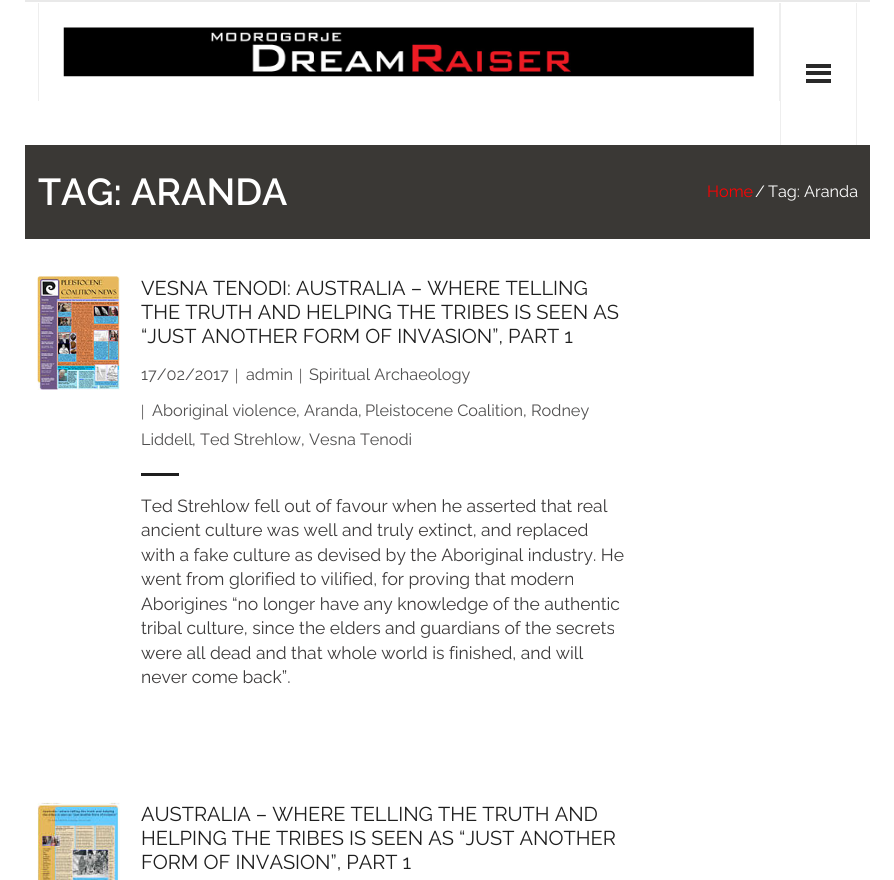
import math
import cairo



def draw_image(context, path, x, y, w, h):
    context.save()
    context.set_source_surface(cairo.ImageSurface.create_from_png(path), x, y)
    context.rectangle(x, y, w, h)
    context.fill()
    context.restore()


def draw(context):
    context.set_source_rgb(1, 1, 1)
    context.paint()
    context.set_source_rgb(233 / 255, 233 / 255, 233 / 255)
    context.rectangle(25, 0, 845, 2)
    context.fill()
    context.set_source_rgb(238 / 255, 238 / 255, 238 / 255)
    context.rectangle(779, 3, 1, 98)
    context.fill()
    context.rectangle(38, 3, 1, 98)
    context.fill()
    draw_image(context, "images/1.png", 63, 27, 691, 50)
    context.rectangle(856, 3, 1, 142)
    context.fill()
    context.rectangle(780, 3, 1, 142)
    context.fill()
    context.set_source_rgb(41 / 255, 41 / 255, 41 / 255)
    context.rectangle(806, 64, 25, 4)
    context.fill()
    context.rectangle(806, 71, 25, 4)
    context.fill()
    context.rectangle(806, 79, 25, 4)
    context.fill()
    context.set_source_rgb(58 / 255, 56 / 255, 53 / 255)
    context.rectangle(25, 145, 845, 94)
    context.fill()
    draw_image(context, "images/2.png", 37, 276, 83, 114)
    context.set_source_rgb(30 / 255, 30 / 255, 30 / 255)
    context.rectangle(141, 473, 38, 3)
    context.fill()
    draw_image(context, "images/3.png", 37, 802, 83, 78)
    context.select_font_face("Raleway SemiBold")
    context.set_font_size(37.5)
    context.set_source_rgb(1, 1, 1)
    context.move_to(38, 205)
    context.show_text("TAG: ARANDA")
    context.select_font_face("Raleway")
    context.set_font_size(16.25)
    context.set_source_rgb(1, 0, 0)
    context.move_to(707, 197)
    context.show_text("Home")
    context.set_source_rgb(1, 1, 1)
    context.move_to(755, 197)
    context.show_text("/")
    context.move_to(768, 197)
    context.show_text("Tag: Aranda")
    context.set_font_size(20)
    context.set_source_rgb(30 / 255, 30 / 255, 30 / 255)
    context.move_to(141, 295)
    context.show_text("VESNA TENODI: AUSTRALIA – WHERE TELLING")
    context.move_to(141, 319)
    context.show_text("THE TRUTH AND HELPING THE TRIBES IS SEEN AS")
    context.move_to(141, 343)
    context.show_text("“JUST ANOTHER FORM OF INVASION”, PART 1")
    context.set_font_size(16.25)
    context.set_source_rgb(80 / 255, 79 / 255, 79 / 255)
    context.move_to(141, 380)
    context.show_text("17/02/2017")
    context.select_font_face("Liberation Serif")
    context.move_to(235, 380)
    context.show_text("|")
    context.select_font_face("Raleway")
    context.move_to(246, 380)
    context.show_text("admin")
    context.select_font_face("Liberation Serif")
    context.move_to(299, 380)
    context.show_text("|")
    context.select_font_face("Raleway")
    context.move_to(309, 380)
    context.show_text("Spiritual Archaeology")
    context.select_font_face("Liberation Serif")
    context.move_to(141, 416)
    context.show_text("|")
    context.select_font_face("Raleway")
    context.move_to(152, 416)
    context.show_text("Aboriginal violence")
    context.set_source_rgb(61 / 255, 59 / 255, 59 / 255)
    context.move_to(296, 416)
    context.show_text(",")
    context.set_source_rgb(80 / 255, 79 / 255, 79 / 255)
    context.move_to(304, 416)
    context.show_text("Aranda")
    context.set_source_rgb(61 / 255, 59 / 255, 59 / 255)
    context.move_to(358, 416)
    context.show_text(",")
    context.set_source_rgb(80 / 255, 79 / 255, 79 / 255)
    context.move_to(365, 416)
    context.show_text("Pleistocene Coalition")
    context.set_source_rgb(61 / 255, 59 / 255, 59 / 255)
    context.move_to(523, 416)
    context.show_text(",")
    context.set_source_rgb(80 / 255, 79 / 255, 79 / 255)
    context.move_to(531, 416)
    context.show_text("Rodney")
    context.move_to(141, 445)
    context.show_text("Liddell")
    context.set_source_rgb(61 / 255, 59 / 255, 59 / 255)
    context.move_to(192, 445)
    context.show_text(",")
    context.set_source_rgb(80 / 255, 79 / 255, 79 / 255)
    context.move_to(200, 445)
    context.show_text("Ted Strehlow")
    context.set_source_rgb(61 / 255, 59 / 255, 59 / 255)
    context.move_to(301, 445)
    context.show_text(",")
    context.set_source_rgb(80 / 255, 79 / 255, 79 / 255)
    context.move_to(309, 445)
    context.show_text("Vesna Tenodi")
    context.set_font_size(17.5)
    context.set_source_rgb(61 / 255, 59 / 255, 59 / 255)
    context.move_to(141, 512)
    context.show_text("Ted Strehlow fell out of favour when he asserted that real")
    context.move_to(141, 536)
    context.show_text("ancient culture was well and truly extinct, and replaced")
    context.move_to(141, 561)
    context.show_text("with a fake culture as devised by the Aboriginal industry. He")
    context.move_to(141, 585)
    context.show_text("went from glorified to vilified, for proving that modern")
    context.move_to(141, 610)
    context.show_text("Aborigines “no longer have any knowledge of the authentic")
    context.move_to(141, 634)
    context.show_text("tribal culture, since the elders and guardians of the secrets")
    context.move_to(141, 659)
    context.show_text("were all dead and that whole world is finished, and will")
    context.move_to(141, 683)
    context.show_text("never come back”.")
    context.set_font_size(20)
    context.set_source_rgb(30 / 255, 30 / 255, 30 / 255)
    context.move_to(141, 821)
    context.show_text("AUSTRALIA – WHERE TELLING THE TRUTH AND")
    context.move_to(141, 845)
    context.show_text("HELPING THE TRIBES IS SEEN AS “JUST ANOTHER")
    context.move_to(141, 869)
    context.show_text("FORM OF INVASION”, PART 1")


surface = cairo.ImageSurface(cairo.Format.RGB24, 894, 880)
context = cairo.Context(surface)
options = cairo.FontOptions()
options.set_hint_metrics(cairo.HintMetrics.OFF)
options.set_hint_style(cairo.HintStyle.NONE)
context.set_font_options(options)
context.set_miter_limit(4)
draw(context)
surface.write_to_png("out.png")
